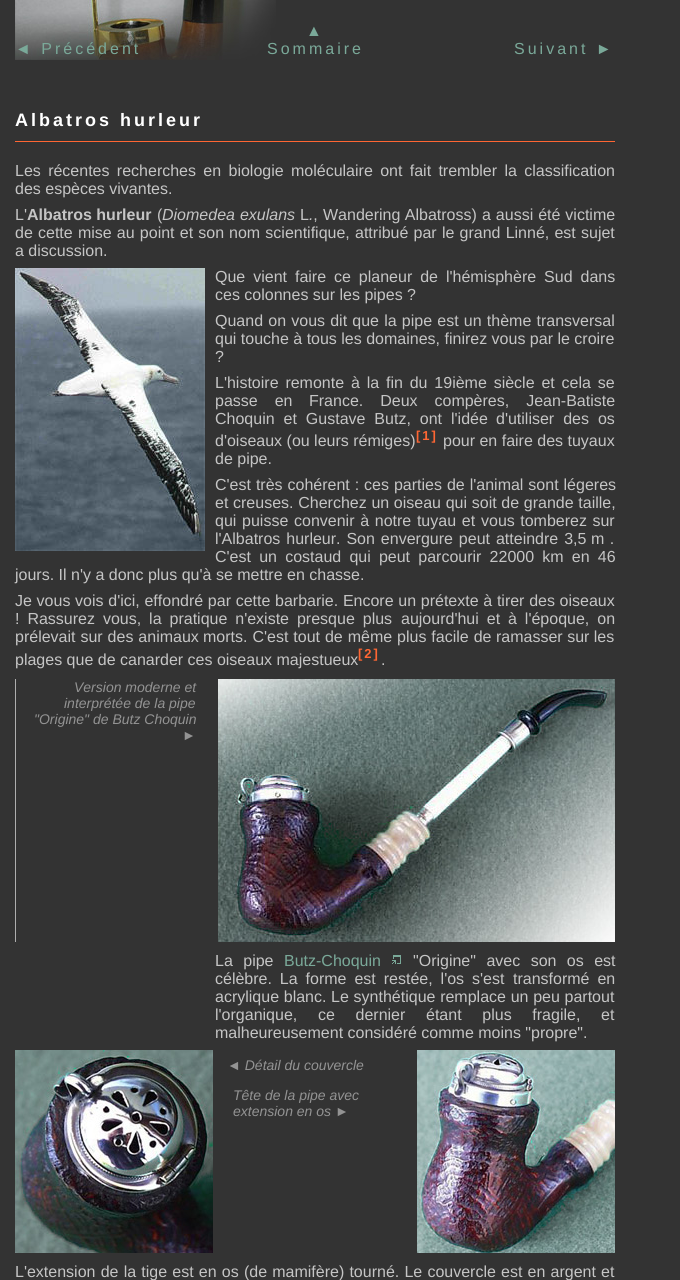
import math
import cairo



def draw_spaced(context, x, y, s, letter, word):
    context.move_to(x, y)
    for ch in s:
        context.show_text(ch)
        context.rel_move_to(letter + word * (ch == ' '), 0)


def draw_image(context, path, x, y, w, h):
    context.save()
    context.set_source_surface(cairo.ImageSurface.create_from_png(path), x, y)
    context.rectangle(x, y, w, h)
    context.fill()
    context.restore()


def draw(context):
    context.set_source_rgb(51 / 255, 51 / 255, 51 / 255)
    context.paint()
    draw_image(context, "images/1.png", 15, 0, 261, 60)
    context.set_source_rgb(1, 102 / 255, 51 / 255)
    context.rectangle(15, 141, 600, 1)
    context.fill()
    draw_image(context, "images/2.png", 15, 268, 190, 283)
    context.set_source_rgb(174 / 255, 174 / 255, 174 / 255)
    context.rectangle(15, 679, 1, 263)
    context.fill()
    draw_image(context, "images/3.png", 218, 679, 397, 263)
    draw_image(context, "images/4.png", 392, 955, 9, 9)
    draw_image(context, "images/5.png", 15, 1050, 198, 203)
    draw_image(context, "images/6.png", 417, 1050, 198, 203)
    context.select_font_face("Liberation Sans")
    context.set_font_size(16)
    context.set_source_rgb(122 / 255, 169 / 255, 153 / 255)
    draw_spaced(context, 15, 54, "◄ Précédent", 3, 0)
    draw_spaced(context, 306, 36, "▲", 3, 0)
    draw_spaced(context, 267, 54, "Sommaire", 3, 0)
    draw_spaced(context, 514, 54, "Suivant ►", 3, 0)
    context.select_font_face("Liberation Sans", cairo.FontSlant.NORMAL, cairo.FontWeight.BOLD)
    context.set_font_size(18)
    context.set_source_rgb(1, 1, 1)
    draw_spaced(context, 15, 126, "Albatros hurleur", 3, 0)
    context.select_font_face("Liberation Sans")
    context.set_font_size(16)
    context.set_source_rgb(197 / 255, 197 / 255, 197 / 255)
    draw_spaced(context, 15, 176, "Les récentes recherches en biologie moléculaire ont fait trembler la classification", 0, 2.9)
    context.move_to(15, 194)
    context.show_text("des espèces vivantes.")
    context.move_to(15, 220)
    context.show_text("L'")
    context.select_font_face("Liberation Sans", cairo.FontSlant.NORMAL, cairo.FontWeight.BOLD)
    context.move_to(27, 220)
    context.show_text("Albatros hurleur")
    context.select_font_face("Liberation Sans")
    context.move_to(157, 220)
    context.show_text("(")
    context.select_font_face("Liberation Sans", cairo.FontSlant.ITALIC)
    draw_spaced(context, 162, 220, "Diomedea exulans", 0, 0.5)
    context.select_font_face("Liberation Sans")
    context.move_to(300, 220)
    context.show_text("L ,")
    context.move_to(323, 220)
    context.show_text("Wandering Albatross)")
    draw_spaced(context, 482, 220, "a aussi été victime", 0, 0.5)
    context.select_font_face("Liberation Sans", cairo.FontSlant.ITALIC)
    context.move_to(309, 220)
    context.show_text(".")
    context.select_font_face("Liberation Sans")
    draw_spaced(context, 15, 238, "de cette mise au point et son", 0, 0.75)
    draw_spaced(context, 229, 238, "nom scientifique, attribué par le grand Linné, est sujet", 0, 0.75)
    context.move_to(15, 256)
    context.show_text("a discussion.")
    draw_spaced(context, 215, 282, "Que vient faire ce planeur de l'hémisphère Sud dans", 0, 3.5)
    context.move_to(215, 300)
    context.show_text("ces colonnes sur les pipes ?")
    draw_spaced(context, 215, 326, "Quand on vous dit que la pipe est un thème transversal", 0, 0.75)
    context.move_to(215, 344)
    context.show_text("qui touche à tous les domaines, finirez vous par le croire")
    context.move_to(215, 362)
    context.show_text("?")
    draw_spaced(context, 215, 388, "L'histoire remonte à la fin du 19ième siècle et cela se", 0, 2.4)
    draw_spaced(context, 215, 406, "passe en", 0, 12.5)
    draw_spaced(context, 309, 406, "France. Deux compères, Jean-Batiste", 0, 12.5)
    draw_spaced(context, 215, 424, "Choquin et Gustave Butz, ont l'idée", 0, 4.5)
    draw_spaced(context, 496, 424, "d'utiliser des os", 0, 4.5)
    context.move_to(215, 446)
    context.show_text("d'oiseaux (ou leurs rémiges)")
    context.select_font_face("Liberation Sans", cairo.FontSlant.NORMAL, cairo.FontWeight.BOLD)
    context.set_font_size(13)
    context.set_source_rgb(1, 102 / 255, 51 / 255)
    draw_spaced(context, 416, 440, "[1]", 2, 0)
    context.select_font_face("Liberation Sans")
    context.set_font_size(16)
    context.set_source_rgb(197 / 255, 197 / 255, 197 / 255)
    context.move_to(443, 446)
    context.show_text("pour en faire des tuyaux")
    context.move_to(215, 464)
    context.show_text("de pipe.")
    draw_spaced(context, 215, 490, "C'est très cohérent : ces parties de l'animal sont légeres", 0, 0.5)
    draw_spaced(context, 215, 508, "et creuses. Cherchez un oiseau qui soit de grande taille,", 0, 0.25)
    draw_spaced(context, 215, 526, "qui puisse convenir à notre tuyau et", 0, 1.25)
    draw_spaced(context, 481, 526, "vous tomberez sur", 0, 1)
    draw_spaced(context, 215, 544, "l'Albatros hurleur. Son envergure peut atteindre 3,5", 0, 1.5)
    draw_spaced(context, 591, 544, "m .", 0, 1)
    draw_spaced(context, 215, 562, "C'est un costaud qui peut parcourir 22000 km en 46", 0, 3.75)
    context.move_to(15, 580)
    context.show_text("jours. Il n'y a donc plus qu'à se mettre en chasse.")
    draw_spaced(context, 15, 606, "Je vous vois d'ici, effondré par cette barbarie. Encore un prétexte à tirer des oiseaux", 0, 0.25)
    draw_spaced(context, 15, 624, "! Rassurez vous, la pratique n'existe presque plus", 0, 3.5)
    draw_spaced(context, 401, 624, "aujourd'hui et à l'époque, on", 0, 3.5)
    draw_spaced(context, 15, 642, "prélevait sur des animaux", 0, 0.5)
    draw_spaced(context, 203, 642, "morts. C'est tout de même plus facile de", 0, 0.5)
    context.move_to(496, 642)
    context.show_text("ramasser sur les")
    context.move_to(15, 665)
    context.show_text("plages que de canarder ces oiseaux majestueux")
    context.select_font_face("Liberation Sans", cairo.FontSlant.NORMAL, cairo.FontWeight.BOLD)
    context.set_font_size(13)
    context.set_source_rgb(1, 102 / 255, 51 / 255)
    draw_spaced(context, 358, 658, "[2]", 2, 0)
    context.select_font_face("Liberation Sans")
    context.set_font_size(16)
    context.set_source_rgb(197 / 255, 197 / 255, 197 / 255)
    context.move_to(381, 665)
    context.show_text(".")
    context.select_font_face("Liberation Sans", cairo.FontSlant.ITALIC)
    context.set_font_size(14)
    context.set_source_rgb(147 / 255, 147 / 255, 147 / 255)
    context.move_to(74, 692)
    context.show_text("Version moderne et")
    context.move_to(64, 708)
    context.show_text("interprétée de la pipe")
    context.move_to(34, 724)
    context.show_text("\"Origine\" de Butz Choquin")
    context.move_to(182, 740)
    context.show_text("►")
    context.select_font_face("Liberation Sans")
    context.set_font_size(16)
    context.set_source_rgb(197 / 255, 197 / 255, 197 / 255)
    draw_spaced(context, 215, 966, "La pipe", 0, 6)
    context.set_source_rgb(122 / 255, 169 / 255, 153 / 255)
    context.move_to(284, 966)
    context.show_text("Butz-Choquin")
    context.set_source_rgb(197 / 255, 197 / 255, 197 / 255)
    draw_spaced(context, 413, 966, "\"Origine\" avec son os est", 0, 6)
    draw_spaced(context, 215, 984, "célèbre. La forme est restée, l'os s'est", 0, 3.5)
    draw_spaced(context, 513, 984, "transformé en", 0, 3.5)
    draw_spaced(context, 215, 1002, "acrylique blanc. Le synthétique remplace un peu partout", 0, 0.25)
    draw_spaced(context, 215, 1020, "l'organique, ce dernier étant plus fragile, et", 0, 16.25)
    context.move_to(215, 1038)
    context.show_text("malheureusement considéré comme moins \"propre\".")
    context.select_font_face("Liberation Sans", cairo.FontSlant.ITALIC)
    context.set_font_size(14)
    context.set_source_rgb(147 / 255, 147 / 255, 147 / 255)
    context.move_to(227, 1070)
    context.show_text("◄ Détail du couvercle")
    context.move_to(233, 1100)
    context.show_text("Tête de la pipe avec")
    context.move_to(233, 1116)
    context.show_text("extension en os ►")
    context.select_font_face("Liberation Sans")
    context.set_font_size(16)
    context.set_source_rgb(197 / 255, 197 / 255, 197 / 255)
    draw_spaced(context, 15, 1277, "L'extension de la tige est en os (de mamifère) tourné. Le couvercle", 0, 0.75)
    draw_spaced(context, 501, 1277, "est en argent et", 0, 0.75)


surface = cairo.ImageSurface(cairo.Format.RGB24, 680, 1280)
context = cairo.Context(surface)
options = cairo.FontOptions()
options.set_hint_metrics(cairo.HintMetrics.OFF)
options.set_hint_style(cairo.HintStyle.NONE)
context.set_font_options(options)
context.set_miter_limit(4)
draw(context)
surface.write_to_png("out.png")
